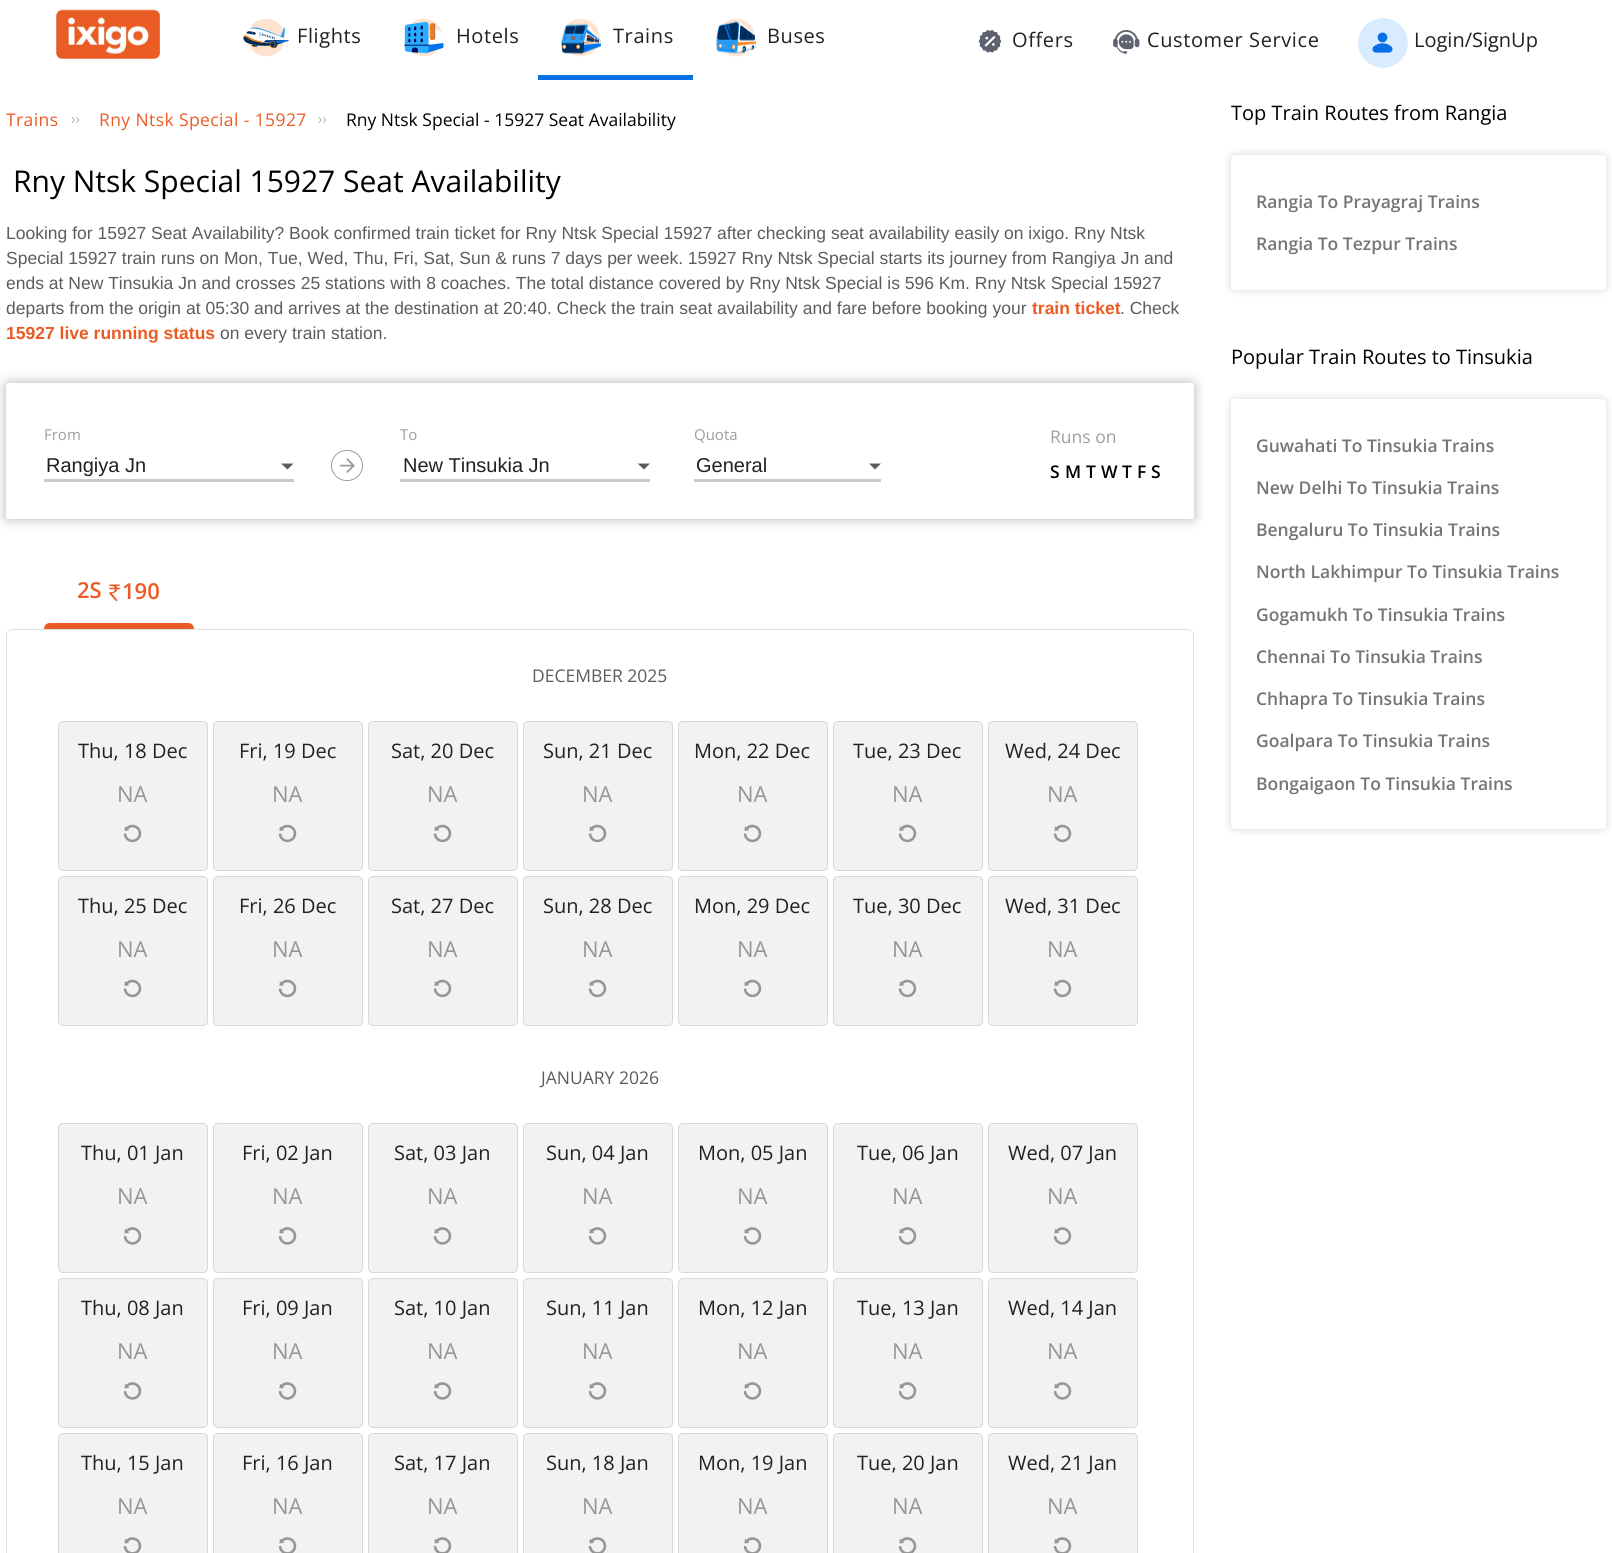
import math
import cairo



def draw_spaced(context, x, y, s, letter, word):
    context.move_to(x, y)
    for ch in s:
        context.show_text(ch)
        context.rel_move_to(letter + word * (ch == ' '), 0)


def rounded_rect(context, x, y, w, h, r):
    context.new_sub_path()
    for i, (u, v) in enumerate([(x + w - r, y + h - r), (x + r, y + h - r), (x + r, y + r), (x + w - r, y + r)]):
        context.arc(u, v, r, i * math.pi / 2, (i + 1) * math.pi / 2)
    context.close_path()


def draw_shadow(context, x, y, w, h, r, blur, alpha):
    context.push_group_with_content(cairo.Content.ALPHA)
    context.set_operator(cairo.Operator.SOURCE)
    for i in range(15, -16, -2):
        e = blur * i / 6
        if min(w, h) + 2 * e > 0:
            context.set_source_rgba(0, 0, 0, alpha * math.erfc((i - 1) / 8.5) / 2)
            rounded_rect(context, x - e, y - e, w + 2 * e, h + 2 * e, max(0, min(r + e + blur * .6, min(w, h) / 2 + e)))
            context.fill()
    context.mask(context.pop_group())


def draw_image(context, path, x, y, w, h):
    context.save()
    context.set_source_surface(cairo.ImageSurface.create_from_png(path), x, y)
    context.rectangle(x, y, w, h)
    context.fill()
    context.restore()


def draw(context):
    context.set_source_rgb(1, 1, 1)
    context.paint()
    draw_image(context, "images/1.png", 56, 9, 104, 50)
    draw_image(context, "images/2.png", 243, 18, 46, 39)
    draw_image(context, "images/3.png", 404, 18, 40, 39)
    context.set_source_rgb(7 / 255, 112 / 255, 228 / 255)
    context.rectangle(538, 75, 155, 5)
    context.fill()
    draw_image(context, "images/4.png", 561, 18, 40, 39)
    draw_image(context, "images/5.png", 716, 18, 40, 39)
    draw_image(context, "images/6.png", 978, 30, 24, 23)
    draw_image(context, "images/7.png", 1113, 30, 27, 24)
    draw_image(context, "images/8.png", 1358, 18, 50, 50)
    context.set_source_rgb(0, 0, 0)
    draw_shadow(context, 6, 383, 1188, 136, 2.5, 6, 0.3)
    context.set_source_rgb(1, 1, 1)
    rounded_rect(context, 6, 383, 1188, 136, 2.5)
    context.fill()
    context.set_source_rgb(203 / 255, 203 / 255, 203 / 255)
    context.rectangle(44, 479, 250, 3)
    context.fill()
    context.set_source_rgb(92 / 255, 92 / 255, 92 / 255)
    context.new_path()
    context.move_to(281, 463.5)
    context.line_to(293.5, 463.5)
    context.line_to(287.5, 469.5)
    context.close_path()
    context.fill()
    rounded_rect(context, 331.5, 450.5, 31, 30, 15)
    context.set_source_rgb(158 / 255, 158 / 255, 158 / 255)
    context.set_line_width(1)
    context.stroke()
    draw_image(context, "images/9.png", 340, 458, 15, 15)
    context.set_source_rgb(203 / 255, 203 / 255, 203 / 255)
    context.rectangle(400, 479, 250, 3)
    context.fill()
    context.set_source_rgb(92 / 255, 92 / 255, 92 / 255)
    context.new_path()
    context.move_to(637.5, 463.5)
    context.line_to(650, 463.5)
    context.line_to(644, 469.5)
    context.close_path()
    context.fill()
    context.set_source_rgb(203 / 255, 203 / 255, 203 / 255)
    context.rectangle(694, 479, 187, 3)
    context.fill()
    context.set_source_rgb(92 / 255, 92 / 255, 92 / 255)
    context.new_path()
    context.move_to(869, 463.5)
    context.line_to(881, 463.5)
    context.line_to(875, 469.5)
    context.close_path()
    context.fill()
    draw_image(context, "images/10.png", 109, 584, 12, 17)
    context.set_source_rgb(236 / 255, 91 / 255, 36 / 255)
    context.new_path()
    context.move_to(50, 623)
    context.line_to(188, 623)
    context.curve_to(191.5, 623, 194, 625.5, 194, 629)
    context.line_to(44, 629)
    context.curve_to(44, 625.5, 46.5, 623, 50, 623)
    context.close_path()
    context.fill()
    rounded_rect(context, 6.5, 629.5, 1187, 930, 5.5)
    context.set_source_rgb(224 / 255, 224 / 255, 224 / 255)
    context.stroke()
    context.set_source_rgb(242 / 255, 242 / 255, 242 / 255)
    rounded_rect(context, 58.5, 721.5, 149, 149, 4.5)
    context.fill_preserve()
    context.set_source_rgb(216 / 255, 216 / 255, 216 / 255)
    context.stroke()
    draw_image(context, "images/11.png", 123, 824, 19, 19)
    context.set_source_rgb(242 / 255, 242 / 255, 242 / 255)
    rounded_rect(context, 213.5, 721.5, 149, 149, 4.5)
    context.fill_preserve()
    context.set_source_rgb(216 / 255, 216 / 255, 216 / 255)
    context.stroke()
    draw_image(context, "images/11.png", 278, 824, 19, 19)
    context.set_source_rgb(242 / 255, 242 / 255, 242 / 255)
    rounded_rect(context, 368.5, 721.5, 149, 149, 4.5)
    context.fill_preserve()
    context.set_source_rgb(216 / 255, 216 / 255, 216 / 255)
    context.stroke()
    draw_image(context, "images/11.png", 433, 824, 19, 19)
    context.set_source_rgb(242 / 255, 242 / 255, 242 / 255)
    rounded_rect(context, 523.5, 721.5, 149, 149, 4.5)
    context.fill_preserve()
    context.set_source_rgb(216 / 255, 216 / 255, 216 / 255)
    context.stroke()
    draw_image(context, "images/11.png", 588, 824, 19, 19)
    context.set_source_rgb(242 / 255, 242 / 255, 242 / 255)
    rounded_rect(context, 678.5, 721.5, 149, 149, 4.5)
    context.fill_preserve()
    context.set_source_rgb(216 / 255, 216 / 255, 216 / 255)
    context.stroke()
    draw_image(context, "images/11.png", 743, 824, 19, 19)
    context.set_source_rgb(242 / 255, 242 / 255, 242 / 255)
    rounded_rect(context, 833.5, 721.5, 149, 149, 4.5)
    context.fill_preserve()
    context.set_source_rgb(216 / 255, 216 / 255, 216 / 255)
    context.stroke()
    draw_image(context, "images/11.png", 898, 824, 19, 19)
    context.set_source_rgb(242 / 255, 242 / 255, 242 / 255)
    rounded_rect(context, 988.5, 721.5, 149, 149, 4.5)
    context.fill_preserve()
    context.set_source_rgb(216 / 255, 216 / 255, 216 / 255)
    context.stroke()
    draw_image(context, "images/11.png", 1053, 824, 19, 19)
    context.set_source_rgb(242 / 255, 242 / 255, 242 / 255)
    rounded_rect(context, 58.5, 876.5, 149, 149, 4.5)
    context.fill_preserve()
    context.set_source_rgb(216 / 255, 216 / 255, 216 / 255)
    context.stroke()
    draw_image(context, "images/11.png", 123, 979, 19, 19)
    context.set_source_rgb(242 / 255, 242 / 255, 242 / 255)
    rounded_rect(context, 213.5, 876.5, 149, 149, 4.5)
    context.fill_preserve()
    context.set_source_rgb(216 / 255, 216 / 255, 216 / 255)
    context.stroke()
    draw_image(context, "images/11.png", 278, 979, 19, 19)
    context.set_source_rgb(242 / 255, 242 / 255, 242 / 255)
    rounded_rect(context, 368.5, 876.5, 149, 149, 4.5)
    context.fill_preserve()
    context.set_source_rgb(216 / 255, 216 / 255, 216 / 255)
    context.stroke()
    draw_image(context, "images/11.png", 433, 979, 19, 19)
    context.set_source_rgb(242 / 255, 242 / 255, 242 / 255)
    rounded_rect(context, 523.5, 876.5, 149, 149, 4.5)
    context.fill_preserve()
    context.set_source_rgb(216 / 255, 216 / 255, 216 / 255)
    context.stroke()
    draw_image(context, "images/11.png", 588, 979, 19, 19)
    context.set_source_rgb(242 / 255, 242 / 255, 242 / 255)
    rounded_rect(context, 678.5, 876.5, 149, 149, 4.5)
    context.fill_preserve()
    context.set_source_rgb(216 / 255, 216 / 255, 216 / 255)
    context.stroke()
    draw_image(context, "images/11.png", 743, 979, 19, 19)
    context.set_source_rgb(242 / 255, 242 / 255, 242 / 255)
    rounded_rect(context, 833.5, 876.5, 149, 149, 4.5)
    context.fill_preserve()
    context.set_source_rgb(216 / 255, 216 / 255, 216 / 255)
    context.stroke()
    draw_image(context, "images/11.png", 898, 979, 19, 19)
    context.set_source_rgb(242 / 255, 242 / 255, 242 / 255)
    rounded_rect(context, 988.5, 876.5, 149, 149, 4.5)
    context.fill_preserve()
    context.set_source_rgb(216 / 255, 216 / 255, 216 / 255)
    context.stroke()
    draw_image(context, "images/11.png", 1053, 979, 19, 19)
    context.set_source_rgb(242 / 255, 242 / 255, 242 / 255)
    rounded_rect(context, 58.5, 1123.5, 149, 149, 4.5)
    context.fill_preserve()
    context.set_source_rgb(216 / 255, 216 / 255, 216 / 255)
    context.stroke()
    draw_image(context, "images/12.png", 123, 1227, 19, 18)
    context.set_source_rgb(242 / 255, 242 / 255, 242 / 255)
    rounded_rect(context, 213.5, 1123.5, 149, 149, 4.5)
    context.fill_preserve()
    context.set_source_rgb(216 / 255, 216 / 255, 216 / 255)
    context.stroke()
    draw_image(context, "images/12.png", 278, 1227, 19, 18)
    context.set_source_rgb(242 / 255, 242 / 255, 242 / 255)
    rounded_rect(context, 368.5, 1123.5, 149, 149, 4.5)
    context.fill_preserve()
    context.set_source_rgb(216 / 255, 216 / 255, 216 / 255)
    context.stroke()
    draw_image(context, "images/12.png", 433, 1227, 19, 18)
    context.set_source_rgb(242 / 255, 242 / 255, 242 / 255)
    rounded_rect(context, 523.5, 1123.5, 149, 149, 4.5)
    context.fill_preserve()
    context.set_source_rgb(216 / 255, 216 / 255, 216 / 255)
    context.stroke()
    draw_image(context, "images/12.png", 588, 1227, 19, 18)
    context.set_source_rgb(242 / 255, 242 / 255, 242 / 255)
    rounded_rect(context, 678.5, 1123.5, 149, 149, 4.5)
    context.fill_preserve()
    context.set_source_rgb(216 / 255, 216 / 255, 216 / 255)
    context.stroke()
    draw_image(context, "images/12.png", 743, 1227, 19, 18)
    context.set_source_rgb(242 / 255, 242 / 255, 242 / 255)
    rounded_rect(context, 833.5, 1123.5, 149, 149, 4.5)
    context.fill_preserve()
    context.set_source_rgb(216 / 255, 216 / 255, 216 / 255)
    context.stroke()
    draw_image(context, "images/12.png", 898, 1227, 19, 18)
    context.set_source_rgb(242 / 255, 242 / 255, 242 / 255)
    rounded_rect(context, 988.5, 1123.5, 149, 149, 4.5)
    context.fill_preserve()
    context.set_source_rgb(216 / 255, 216 / 255, 216 / 255)
    context.stroke()
    draw_image(context, "images/12.png", 1053, 1227, 19, 18)
    context.set_source_rgb(242 / 255, 242 / 255, 242 / 255)
    rounded_rect(context, 58.5, 1278.5, 149, 149, 4.5)
    context.fill_preserve()
    context.set_source_rgb(216 / 255, 216 / 255, 216 / 255)
    context.stroke()
    draw_image(context, "images/12.png", 123, 1382, 19, 18)
    context.set_source_rgb(242 / 255, 242 / 255, 242 / 255)
    rounded_rect(context, 213.5, 1278.5, 149, 149, 4.5)
    context.fill_preserve()
    context.set_source_rgb(216 / 255, 216 / 255, 216 / 255)
    context.stroke()
    draw_image(context, "images/12.png", 278, 1382, 19, 18)
    context.set_source_rgb(242 / 255, 242 / 255, 242 / 255)
    rounded_rect(context, 368.5, 1278.5, 149, 149, 4.5)
    context.fill_preserve()
    context.set_source_rgb(216 / 255, 216 / 255, 216 / 255)
    context.stroke()
    draw_image(context, "images/12.png", 433, 1382, 19, 18)
    context.set_source_rgb(242 / 255, 242 / 255, 242 / 255)
    rounded_rect(context, 523.5, 1278.5, 149, 149, 4.5)
    context.fill_preserve()
    context.set_source_rgb(216 / 255, 216 / 255, 216 / 255)
    context.stroke()
    draw_image(context, "images/12.png", 588, 1382, 19, 18)
    context.set_source_rgb(242 / 255, 242 / 255, 242 / 255)
    rounded_rect(context, 678.5, 1278.5, 149, 149, 4.5)
    context.fill_preserve()
    context.set_source_rgb(216 / 255, 216 / 255, 216 / 255)
    context.stroke()
    draw_image(context, "images/12.png", 743, 1382, 19, 18)
    context.set_source_rgb(242 / 255, 242 / 255, 242 / 255)
    rounded_rect(context, 833.5, 1278.5, 149, 149, 4.5)
    context.fill_preserve()
    context.set_source_rgb(216 / 255, 216 / 255, 216 / 255)
    context.stroke()
    draw_image(context, "images/12.png", 898, 1382, 19, 18)
    context.set_source_rgb(242 / 255, 242 / 255, 242 / 255)
    rounded_rect(context, 988.5, 1278.5, 149, 149, 4.5)
    context.fill_preserve()
    context.set_source_rgb(216 / 255, 216 / 255, 216 / 255)
    context.stroke()
    draw_image(context, "images/12.png", 1053, 1382, 19, 18)
    context.set_source_rgb(242 / 255, 242 / 255, 242 / 255)
    rounded_rect(context, 58.5, 1433.5, 149, 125, 4.5)
    context.fill_preserve()
    context.set_source_rgb(216 / 255, 216 / 255, 216 / 255)
    context.stroke()
    draw_image(context, "images/13.png", 123, 1537, 19, 16)
    context.set_source_rgb(242 / 255, 242 / 255, 242 / 255)
    rounded_rect(context, 213.5, 1433.5, 149, 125, 4.5)
    context.fill_preserve()
    context.set_source_rgb(216 / 255, 216 / 255, 216 / 255)
    context.stroke()
    draw_image(context, "images/13.png", 278, 1537, 19, 16)
    context.set_source_rgb(242 / 255, 242 / 255, 242 / 255)
    rounded_rect(context, 368.5, 1433.5, 149, 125, 4.5)
    context.fill_preserve()
    context.set_source_rgb(216 / 255, 216 / 255, 216 / 255)
    context.stroke()
    draw_image(context, "images/13.png", 433, 1537, 19, 16)
    context.set_source_rgb(242 / 255, 242 / 255, 242 / 255)
    rounded_rect(context, 523.5, 1433.5, 149, 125, 4.5)
    context.fill_preserve()
    context.set_source_rgb(216 / 255, 216 / 255, 216 / 255)
    context.stroke()
    draw_image(context, "images/13.png", 588, 1537, 19, 16)
    context.set_source_rgb(242 / 255, 242 / 255, 242 / 255)
    rounded_rect(context, 678.5, 1433.5, 149, 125, 4.5)
    context.fill_preserve()
    context.set_source_rgb(216 / 255, 216 / 255, 216 / 255)
    context.stroke()
    draw_image(context, "images/13.png", 743, 1537, 19, 16)
    context.set_source_rgb(242 / 255, 242 / 255, 242 / 255)
    rounded_rect(context, 833.5, 1433.5, 149, 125, 4.5)
    context.fill_preserve()
    context.set_source_rgb(216 / 255, 216 / 255, 216 / 255)
    context.stroke()
    draw_image(context, "images/13.png", 898, 1537, 19, 16)
    context.set_source_rgb(242 / 255, 242 / 255, 242 / 255)
    rounded_rect(context, 988.5, 1433.5, 149, 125, 4.5)
    context.fill_preserve()
    context.set_source_rgb(216 / 255, 216 / 255, 216 / 255)
    context.stroke()
    draw_image(context, "images/13.png", 1053, 1537, 19, 16)
    context.set_source_rgb(0, 0, 0)
    draw_shadow(context, 1231, 155, 375, 135, 4, 4.5, 0.15)
    context.set_source_rgb(1, 1, 1)
    rounded_rect(context, 1231, 155, 375, 135, 4)
    context.fill()
    context.set_source_rgb(0, 0, 0)
    draw_shadow(context, 1231, 399, 375, 430, 4, 4.5, 0.15)
    context.set_source_rgb(1, 1, 1)
    rounded_rect(context, 1231, 399, 375, 430, 4)
    context.fill()
    context.select_font_face("Open Sans")
    context.set_font_size(20)
    context.set_source_rgb(33 / 255, 33 / 255, 33 / 255)
    draw_spaced(context, 297, 43, "Flights", 0.6, 0)
    draw_spaced(context, 456, 43, "Hotels", 0.6, 0)
    draw_spaced(context, 613, 43, "Trains", 0.6, 0)
    draw_spaced(context, 767, 43, "Buses", 0.6, 0)
    draw_spaced(context, 1012, 47, "Offers", 0.6, 0)
    draw_spaced(context, 1147, 47, "Customer Service", 0.6, 0)
    context.move_to(1414, 47)
    context.show_text("Login/SignUp")
    context.set_font_size(17.5)
    context.set_source_rgb(236 / 255, 91 / 255, 36 / 255)
    draw_spaced(context, 6, 126, "Trains", 0.4, 0)
    context.set_font_size(15)
    context.set_source_rgb(179 / 255, 179 / 255, 179 / 255)
    context.move_to(71, 124)
    context.show_text("››")
    context.set_font_size(17.5)
    context.set_source_rgb(236 / 255, 91 / 255, 36 / 255)
    draw_spaced(context, 99, 126, "Rny Ntsk Special - 15927", 0.4, 0)
    context.set_font_size(15)
    context.set_source_rgb(179 / 255, 179 / 255, 179 / 255)
    context.move_to(318, 124)
    context.show_text("››")
    context.set_font_size(17.5)
    context.set_source_rgb(0, 0, 0)
    context.move_to(346, 126)
    context.show_text("Rny Ntsk Special - 15927 Seat Availability")
    context.set_font_size(30)
    context.move_to(13, 192)
    context.show_text("Rny Ntsk Special 15927 Seat Availability")
    context.select_font_face("Liberation Sans")
    context.set_font_size(17.5)
    context.set_source_rgb(92 / 255, 92 / 255, 92 / 255)
    context.move_to(6, 239)
    context.show_text("Looking for 15927 Seat Availability? Book confirmed train ticket for Rny Ntsk Special 15927 after checking seat availability easily on ixigo. Rny Ntsk")
    context.move_to(6, 264)
    context.show_text("Special 15927 train runs on Mon, Tue, Wed, Thu, Fri, Sat, Sun & runs 7 days per week. 15927 Rny Ntsk Special starts its journey from Rangiya Jn and")
    context.move_to(6, 289)
    context.show_text("ends at New Tinsukia Jn and crosses 25 stations with 8 coaches. The total distance covered by Rny Ntsk Special is 596 Km. Rny Ntsk Special 15927")
    context.move_to(6, 314)
    context.show_text("departs from the origin at 05:30 and arrives at the destination at 20:40. Check the train seat availability and fare before booking your")
    context.select_font_face("Liberation Sans", cairo.FontSlant.NORMAL, cairo.FontWeight.BOLD)
    context.set_source_rgb(236 / 255, 91 / 255, 36 / 255)
    context.move_to(1032, 314)
    context.show_text("train ticket")
    context.select_font_face("Liberation Sans")
    context.set_source_rgb(92 / 255, 92 / 255, 92 / 255)
    context.move_to(1120, 314)
    context.show_text(". Check")
    context.select_font_face("Liberation Sans", cairo.FontSlant.NORMAL, cairo.FontWeight.BOLD)
    context.set_source_rgb(236 / 255, 91 / 255, 36 / 255)
    context.move_to(6, 339)
    context.show_text("15927 live running status")
    context.select_font_face("Liberation Sans")
    context.set_source_rgb(92 / 255, 92 / 255, 92 / 255)
    context.move_to(220, 339)
    context.show_text("on every train station.")
    context.select_font_face("Open Sans")
    context.set_font_size(15)
    context.set_source_rgb(158 / 255, 158 / 255, 158 / 255)
    context.move_to(44, 440)
    context.show_text("From")
    context.select_font_face("Liberation Sans")
    context.set_font_size(20)
    context.set_source_rgb(33 / 255, 33 / 255, 33 / 255)
    context.move_to(46, 472)
    context.show_text("Rangiya Jn")
    context.select_font_face("Open Sans")
    context.set_font_size(15)
    context.set_source_rgb(158 / 255, 158 / 255, 158 / 255)
    context.move_to(400, 440)
    context.show_text("To")
    context.select_font_face("Liberation Sans")
    context.set_font_size(20)
    context.set_source_rgb(33 / 255, 33 / 255, 33 / 255)
    context.move_to(403, 472)
    context.show_text("New Tinsukia Jn")
    context.select_font_face("Open Sans")
    context.set_font_size(15)
    context.set_source_rgb(158 / 255, 158 / 255, 158 / 255)
    context.move_to(694, 440)
    context.show_text("Quota")
    context.select_font_face("Liberation Sans")
    context.set_font_size(20)
    context.set_source_rgb(33 / 255, 33 / 255, 33 / 255)
    context.move_to(696, 472)
    context.show_text("General")
    context.select_font_face("Open Sans")
    context.set_font_size(17.5)
    context.set_source_rgb(158 / 255, 158 / 255, 158 / 255)
    context.move_to(1050, 443)
    context.show_text("Runs on")
    context.select_font_face("Open Sans SemiBold")
    context.set_source_rgb(0, 0, 0)
    context.move_to(1050, 478)
    context.show_text("S")
    context.move_to(1065, 478)
    context.show_text("M")
    context.move_to(1086, 478)
    context.show_text("T")
    context.move_to(1101, 478)
    context.show_text("W")
    context.move_to(1122, 478)
    context.show_text("T")
    context.move_to(1137, 478)
    context.show_text("F")
    context.move_to(1151, 478)
    context.show_text("S")
    context.set_font_size(22)
    context.set_source_rgb(236 / 255, 91 / 255, 36 / 255)
    context.move_to(77, 598)
    context.show_text("2S")
    context.move_to(122, 599)
    context.show_text("190")
    context.select_font_face("Open Sans")
    context.set_font_size(17.5)
    context.set_source_rgb(92 / 255, 92 / 255, 92 / 255)
    context.move_to(532, 682)
    context.show_text("DECEMBER 2025")
    context.set_font_size(20)
    context.set_source_rgb(33 / 255, 33 / 255, 33 / 255)
    context.move_to(78, 758)
    context.show_text("Thu, 18 Dec")
    context.set_font_size(22)
    context.set_source_rgb(150 / 255, 150 / 255, 150 / 255)
    context.move_to(117, 802)
    context.show_text("NA")
    context.set_font_size(20)
    context.set_source_rgb(33 / 255, 33 / 255, 33 / 255)
    context.move_to(239, 758)
    context.show_text("Fri, 19 Dec")
    context.set_font_size(22)
    context.set_source_rgb(150 / 255, 150 / 255, 150 / 255)
    context.move_to(272, 802)
    context.show_text("NA")
    context.set_font_size(20)
    context.set_source_rgb(33 / 255, 33 / 255, 33 / 255)
    context.move_to(391, 758)
    context.show_text("Sat, 20 Dec")
    context.set_font_size(22)
    context.set_source_rgb(150 / 255, 150 / 255, 150 / 255)
    context.move_to(427, 802)
    context.show_text("NA")
    context.set_font_size(20)
    context.set_source_rgb(33 / 255, 33 / 255, 33 / 255)
    context.move_to(543, 758)
    context.show_text("Sun, 21 Dec")
    context.set_font_size(22)
    context.set_source_rgb(150 / 255, 150 / 255, 150 / 255)
    context.move_to(582, 802)
    context.show_text("NA")
    context.set_font_size(20)
    context.set_source_rgb(33 / 255, 33 / 255, 33 / 255)
    context.move_to(694, 758)
    context.show_text("Mon, 22 Dec")
    context.set_font_size(22)
    context.set_source_rgb(150 / 255, 150 / 255, 150 / 255)
    context.move_to(737, 802)
    context.show_text("NA")
    context.set_font_size(20)
    context.set_source_rgb(33 / 255, 33 / 255, 33 / 255)
    context.move_to(853, 758)
    context.show_text("Tue, 23 Dec")
    context.set_font_size(22)
    context.set_source_rgb(150 / 255, 150 / 255, 150 / 255)
    context.move_to(892, 802)
    context.show_text("NA")
    context.set_font_size(20)
    context.set_source_rgb(33 / 255, 33 / 255, 33 / 255)
    context.move_to(1005, 758)
    context.show_text("Wed, 24 Dec")
    context.set_font_size(22)
    context.set_source_rgb(150 / 255, 150 / 255, 150 / 255)
    context.move_to(1047, 802)
    context.show_text("NA")
    context.set_font_size(20)
    context.set_source_rgb(33 / 255, 33 / 255, 33 / 255)
    context.move_to(78, 913)
    context.show_text("Thu, 25 Dec")
    context.set_font_size(22)
    context.set_source_rgb(150 / 255, 150 / 255, 150 / 255)
    context.move_to(117, 957)
    context.show_text("NA")
    context.set_font_size(20)
    context.set_source_rgb(33 / 255, 33 / 255, 33 / 255)
    context.move_to(239, 913)
    context.show_text("Fri, 26 Dec")
    context.set_font_size(22)
    context.set_source_rgb(150 / 255, 150 / 255, 150 / 255)
    context.move_to(272, 957)
    context.show_text("NA")
    context.set_font_size(20)
    context.set_source_rgb(33 / 255, 33 / 255, 33 / 255)
    context.move_to(391, 913)
    context.show_text("Sat, 27 Dec")
    context.set_font_size(22)
    context.set_source_rgb(150 / 255, 150 / 255, 150 / 255)
    context.move_to(427, 957)
    context.show_text("NA")
    context.set_font_size(20)
    context.set_source_rgb(33 / 255, 33 / 255, 33 / 255)
    context.move_to(543, 913)
    context.show_text("Sun, 28 Dec")
    context.set_font_size(22)
    context.set_source_rgb(150 / 255, 150 / 255, 150 / 255)
    context.move_to(582, 957)
    context.show_text("NA")
    context.set_font_size(20)
    context.set_source_rgb(33 / 255, 33 / 255, 33 / 255)
    context.move_to(694, 913)
    context.show_text("Mon, 29 Dec")
    context.set_font_size(22)
    context.set_source_rgb(150 / 255, 150 / 255, 150 / 255)
    context.move_to(737, 957)
    context.show_text("NA")
    context.set_font_size(20)
    context.set_source_rgb(33 / 255, 33 / 255, 33 / 255)
    context.move_to(853, 913)
    context.show_text("Tue, 30 Dec")
    context.set_font_size(22)
    context.set_source_rgb(150 / 255, 150 / 255, 150 / 255)
    context.move_to(892, 957)
    context.show_text("NA")
    context.set_font_size(20)
    context.set_source_rgb(33 / 255, 33 / 255, 33 / 255)
    context.move_to(1005, 913)
    context.show_text("Wed, 31 Dec")
    context.set_font_size(22)
    context.set_source_rgb(150 / 255, 150 / 255, 150 / 255)
    context.move_to(1047, 957)
    context.show_text("NA")
    context.set_font_size(17.5)
    context.set_source_rgb(92 / 255, 92 / 255, 92 / 255)
    context.move_to(541, 1084)
    context.show_text("JANUARY 2026")
    context.set_font_size(20)
    context.set_source_rgb(33 / 255, 33 / 255, 33 / 255)
    context.move_to(81, 1160)
    context.show_text("Thu, 01 Jan")
    context.set_font_size(22)
    context.set_source_rgb(150 / 255, 150 / 255, 150 / 255)
    context.move_to(117, 1204)
    context.show_text("NA")
    context.set_font_size(20)
    context.set_source_rgb(33 / 255, 33 / 255, 33 / 255)
    context.move_to(242, 1160)
    context.show_text("Fri, 02 Jan")
    context.set_font_size(22)
    context.set_source_rgb(150 / 255, 150 / 255, 150 / 255)
    context.move_to(272, 1204)
    context.show_text("NA")
    context.set_font_size(20)
    context.set_source_rgb(33 / 255, 33 / 255, 33 / 255)
    context.move_to(394, 1160)
    context.show_text("Sat, 03 Jan")
    context.set_font_size(22)
    context.set_source_rgb(150 / 255, 150 / 255, 150 / 255)
    context.move_to(427, 1204)
    context.show_text("NA")
    context.set_font_size(20)
    context.set_source_rgb(33 / 255, 33 / 255, 33 / 255)
    context.move_to(546, 1160)
    context.show_text("Sun, 04 Jan")
    context.set_font_size(22)
    context.set_source_rgb(150 / 255, 150 / 255, 150 / 255)
    context.move_to(582, 1204)
    context.show_text("NA")
    context.set_font_size(20)
    context.set_source_rgb(33 / 255, 33 / 255, 33 / 255)
    context.move_to(698, 1160)
    context.show_text("Mon, 05 Jan")
    context.set_font_size(22)
    context.set_source_rgb(150 / 255, 150 / 255, 150 / 255)
    context.move_to(737, 1204)
    context.show_text("NA")
    context.set_font_size(20)
    context.set_source_rgb(33 / 255, 33 / 255, 33 / 255)
    context.move_to(857, 1160)
    context.show_text("Tue, 06 Jan")
    context.set_font_size(22)
    context.set_source_rgb(150 / 255, 150 / 255, 150 / 255)
    context.move_to(892, 1204)
    context.show_text("NA")
    context.set_font_size(20)
    context.set_source_rgb(33 / 255, 33 / 255, 33 / 255)
    context.move_to(1008, 1160)
    context.show_text("Wed, 07 Jan")
    context.set_font_size(22)
    context.set_source_rgb(150 / 255, 150 / 255, 150 / 255)
    context.move_to(1047, 1204)
    context.show_text("NA")
    context.set_font_size(20)
    context.set_source_rgb(33 / 255, 33 / 255, 33 / 255)
    context.move_to(81, 1315)
    context.show_text("Thu, 08 Jan")
    context.set_font_size(22)
    context.set_source_rgb(150 / 255, 150 / 255, 150 / 255)
    context.move_to(117, 1359)
    context.show_text("NA")
    context.set_font_size(20)
    context.set_source_rgb(33 / 255, 33 / 255, 33 / 255)
    context.move_to(242, 1315)
    context.show_text("Fri, 09 Jan")
    context.set_font_size(22)
    context.set_source_rgb(150 / 255, 150 / 255, 150 / 255)
    context.move_to(272, 1359)
    context.show_text("NA")
    context.set_font_size(20)
    context.set_source_rgb(33 / 255, 33 / 255, 33 / 255)
    context.move_to(394, 1315)
    context.show_text("Sat, 10 Jan")
    context.set_font_size(22)
    context.set_source_rgb(150 / 255, 150 / 255, 150 / 255)
    context.move_to(427, 1359)
    context.show_text("NA")
    context.set_font_size(20)
    context.set_source_rgb(33 / 255, 33 / 255, 33 / 255)
    context.move_to(546, 1315)
    context.show_text("Sun, 11 Jan")
    context.set_font_size(22)
    context.set_source_rgb(150 / 255, 150 / 255, 150 / 255)
    context.move_to(582, 1359)
    context.show_text("NA")
    context.set_font_size(20)
    context.set_source_rgb(33 / 255, 33 / 255, 33 / 255)
    context.move_to(698, 1315)
    context.show_text("Mon, 12 Jan")
    context.set_font_size(22)
    context.set_source_rgb(150 / 255, 150 / 255, 150 / 255)
    context.move_to(737, 1359)
    context.show_text("NA")
    context.set_font_size(20)
    context.set_source_rgb(33 / 255, 33 / 255, 33 / 255)
    context.move_to(857, 1315)
    context.show_text("Tue, 13 Jan")
    context.set_font_size(22)
    context.set_source_rgb(150 / 255, 150 / 255, 150 / 255)
    context.move_to(892, 1359)
    context.show_text("NA")
    context.set_font_size(20)
    context.set_source_rgb(33 / 255, 33 / 255, 33 / 255)
    context.move_to(1008, 1315)
    context.show_text("Wed, 14 Jan")
    context.set_font_size(22)
    context.set_source_rgb(150 / 255, 150 / 255, 150 / 255)
    context.move_to(1047, 1359)
    context.show_text("NA")
    context.set_font_size(20)
    context.set_source_rgb(33 / 255, 33 / 255, 33 / 255)
    context.move_to(81, 1470)
    context.show_text("Thu, 15 Jan")
    context.set_font_size(22)
    context.set_source_rgb(150 / 255, 150 / 255, 150 / 255)
    context.move_to(117, 1514)
    context.show_text("NA")
    context.set_font_size(20)
    context.set_source_rgb(33 / 255, 33 / 255, 33 / 255)
    context.move_to(242, 1470)
    context.show_text("Fri, 16 Jan")
    context.set_font_size(22)
    context.set_source_rgb(150 / 255, 150 / 255, 150 / 255)
    context.move_to(272, 1514)
    context.show_text("NA")
    context.set_font_size(20)
    context.set_source_rgb(33 / 255, 33 / 255, 33 / 255)
    context.move_to(394, 1470)
    context.show_text("Sat, 17 Jan")
    context.set_font_size(22)
    context.set_source_rgb(150 / 255, 150 / 255, 150 / 255)
    context.move_to(427, 1514)
    context.show_text("NA")
    context.set_font_size(20)
    context.set_source_rgb(33 / 255, 33 / 255, 33 / 255)
    context.move_to(546, 1470)
    context.show_text("Sun, 18 Jan")
    context.set_font_size(22)
    context.set_source_rgb(150 / 255, 150 / 255, 150 / 255)
    context.move_to(582, 1514)
    context.show_text("NA")
    context.set_font_size(20)
    context.set_source_rgb(33 / 255, 33 / 255, 33 / 255)
    context.move_to(698, 1470)
    context.show_text("Mon, 19 Jan")
    context.set_font_size(22)
    context.set_source_rgb(150 / 255, 150 / 255, 150 / 255)
    context.move_to(737, 1514)
    context.show_text("NA")
    context.set_font_size(20)
    context.set_source_rgb(33 / 255, 33 / 255, 33 / 255)
    context.move_to(857, 1470)
    context.show_text("Tue, 20 Jan")
    context.set_font_size(22)
    context.set_source_rgb(150 / 255, 150 / 255, 150 / 255)
    context.move_to(892, 1514)
    context.show_text("NA")
    context.set_font_size(20)
    context.set_source_rgb(33 / 255, 33 / 255, 33 / 255)
    context.move_to(1008, 1470)
    context.show_text("Wed, 21 Jan")
    context.set_font_size(22)
    context.set_source_rgb(150 / 255, 150 / 255, 150 / 255)
    context.move_to(1047, 1514)
    context.show_text("NA")
    context.set_font_size(20)
    context.set_source_rgb(0, 0, 0)
    context.move_to(1231, 120)
    context.show_text("Top Train Routes from Rangia")
    context.select_font_face("Open Sans SemiBold")
    context.set_font_size(17.5)
    context.set_source_rgb(117 / 255, 117 / 255, 117 / 255)
    context.move_to(1256, 208)
    context.show_text("Rangia To Prayagraj Trains")
    context.move_to(1256, 250)
    context.show_text("Rangia To Tezpur Trains")
    context.select_font_face("Open Sans")
    context.set_font_size(20)
    context.set_source_rgb(0, 0, 0)
    context.move_to(1231, 364)
    context.show_text("Popular Train Routes to Tinsukia")
    context.select_font_face("Open Sans SemiBold")
    context.set_font_size(17.5)
    context.set_source_rgb(117 / 255, 117 / 255, 117 / 255)
    context.move_to(1256, 452)
    context.show_text("Guwahati To Tinsukia Trains")
    context.move_to(1256, 494)
    context.show_text("New Delhi To Tinsukia Trains")
    context.move_to(1256, 536)
    context.show_text("Bengaluru To Tinsukia Trains")
    context.move_to(1256, 578)
    context.show_text("North Lakhimpur To Tinsukia Trains")
    context.move_to(1256, 621)
    context.show_text("Gogamukh To Tinsukia Trains")
    context.move_to(1256, 663)
    context.show_text("Chennai To Tinsukia Trains")
    context.move_to(1256, 705)
    context.show_text("Chhapra To Tinsukia Trains")
    context.move_to(1256, 747)
    context.show_text("Goalpara To Tinsukia Trains")
    context.move_to(1256, 790)
    context.show_text("Bongaigaon To Tinsukia Trains")


surface = cairo.ImageSurface(cairo.Format.RGB24, 1612, 1553)
context = cairo.Context(surface)
options = cairo.FontOptions()
options.set_hint_metrics(cairo.HintMetrics.OFF)
options.set_hint_style(cairo.HintStyle.NONE)
context.set_font_options(options)
context.set_miter_limit(4)
draw(context)
surface.write_to_png("out.png")
